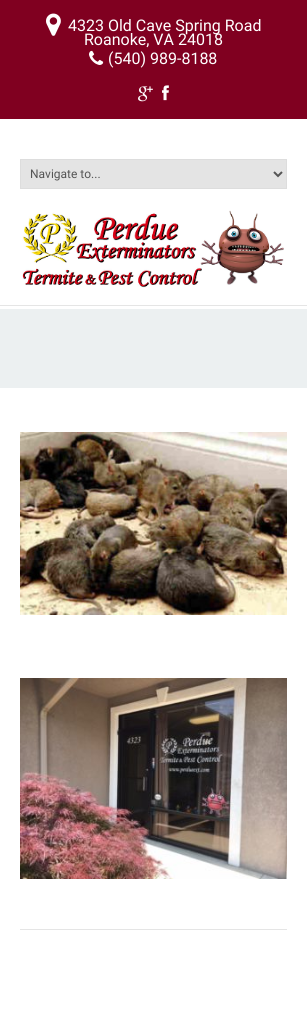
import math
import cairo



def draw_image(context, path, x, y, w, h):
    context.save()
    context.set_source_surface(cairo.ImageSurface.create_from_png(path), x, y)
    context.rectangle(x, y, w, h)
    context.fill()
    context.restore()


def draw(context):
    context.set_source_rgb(1, 1, 1)
    context.paint()
    context.set_source_rgb(128 / 255, 0, 32 / 255)
    context.rectangle(0, 0, 307, 119)
    context.fill()
    draw_image(context, "images/1.png", 46, 13, 15, 23)
    draw_image(context, "images/2.png", 89, 50, 15, 15)
    draw_image(context, "images/3.png", 138, 86, 15, 16)
    draw_image(context, "images/4.png", 162, 85, 7, 16)
    context.set_source_rgb(228 / 255, 228 / 255, 228 / 255)
    context.rectangle(20.5, 159.5, 266, 29)
    context.fill_preserve()
    context.set_source_rgb(221 / 255, 221 / 255, 221 / 255)
    context.set_line_width(1)
    context.stroke()
    context.new_path()
    context.move_to(274, 172)
    context.line_to(278, 176)
    context.line_to(282, 172)
    context.set_source_rgb(85 / 255, 85 / 255, 85 / 255)
    context.set_line_width(2)
    context.stroke()
    draw_image(context, "images/5.png", 22, 210, 262, 78)
    context.set_source_rgb(229 / 255, 229 / 255, 229 / 255)
    context.rectangle(0, 305, 307, 1)
    context.fill()
    context.set_source_rgb(236 / 255, 240 / 255, 241 / 255)
    context.rectangle(0, 309, 307, 79)
    context.fill()
    draw_image(context, "images/6.png", 20, 432, 267, 183)
    draw_image(context, "images/7.png", 20, 678, 267, 201)
    context.set_source_rgb(229 / 255, 229 / 255, 229 / 255)
    context.rectangle(20, 929, 267, 1)
    context.fill()
    context.select_font_face("Roboto")
    context.set_font_size(16)
    context.set_source_rgb(1, 1, 1)
    context.move_to(68, 31)
    context.show_text("4323 Old Cave Spring Road")
    context.move_to(84, 45)
    context.show_text("Roanoke, VA 24018")
    context.move_to(108, 64)
    context.show_text("(540) 989-8188")
    context.set_font_size(12)
    context.set_source_rgb(85 / 255, 85 / 255, 85 / 255)
    context.move_to(30, 178)
    context.show_text("Navigate to...")


surface = cairo.ImageSurface(cairo.Format.RGB24, 307, 1018)
context = cairo.Context(surface)
options = cairo.FontOptions()
options.set_hint_metrics(cairo.HintMetrics.OFF)
options.set_hint_style(cairo.HintStyle.NONE)
context.set_font_options(options)
context.set_miter_limit(4)
draw(context)
surface.write_to_png("out.png")
